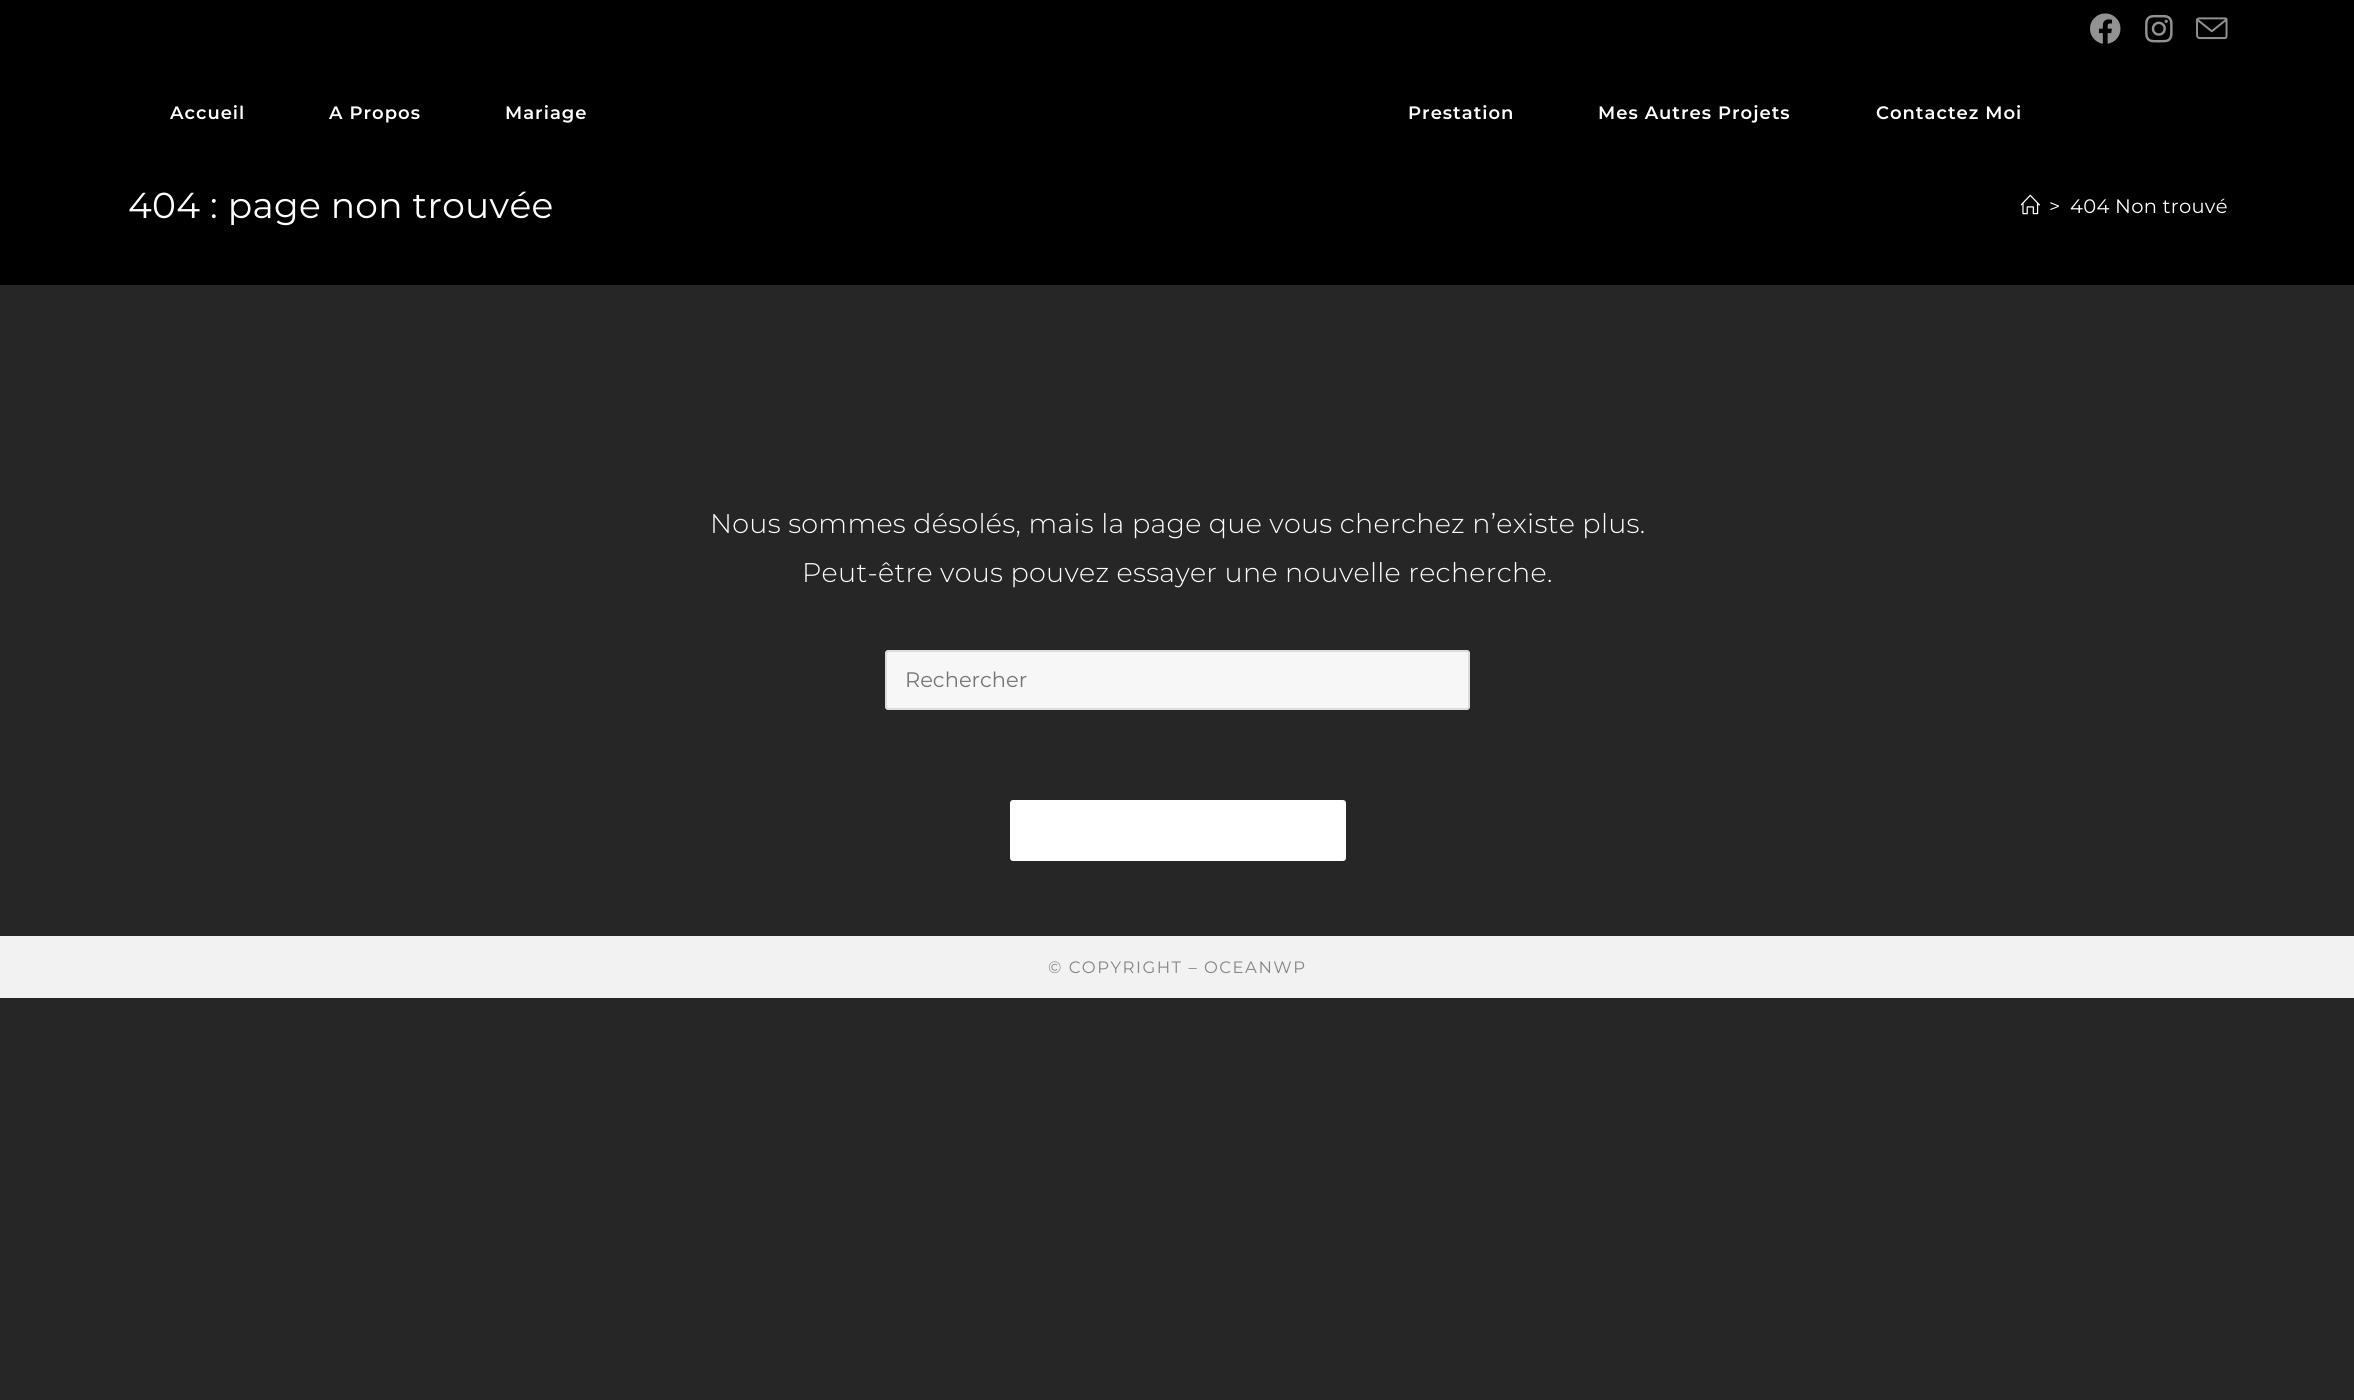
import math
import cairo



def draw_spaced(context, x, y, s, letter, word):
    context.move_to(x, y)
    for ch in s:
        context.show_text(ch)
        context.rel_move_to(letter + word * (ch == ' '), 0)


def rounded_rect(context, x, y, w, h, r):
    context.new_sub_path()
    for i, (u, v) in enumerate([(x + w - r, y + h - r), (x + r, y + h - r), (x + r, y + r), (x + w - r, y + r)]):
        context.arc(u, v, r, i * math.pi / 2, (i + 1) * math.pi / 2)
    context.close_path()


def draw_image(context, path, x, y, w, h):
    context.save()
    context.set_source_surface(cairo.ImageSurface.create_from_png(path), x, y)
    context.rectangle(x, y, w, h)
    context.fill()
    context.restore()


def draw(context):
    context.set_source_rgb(38 / 255, 38 / 255, 38 / 255)
    context.paint()
    context.set_source_rgb(0, 0, 0)
    context.rectangle(0, 0, 2354, 285)
    context.fill()
    draw_image(context, "images/1.png", 2090, 13, 31, 31)
    draw_image(context, "images/2.png", 2145, 14, 28, 29)
    draw_image(context, "images/3.png", 2196, 17, 32, 23)
    draw_image(context, "images/4.png", 2021, 194, 19, 21)
    context.set_source_rgb(247 / 255, 247 / 255, 247 / 255)
    rounded_rect(context, 886, 651, 583, 58, 2)
    context.fill_preserve()
    context.set_source_rgb(221 / 255, 221 / 255, 221 / 255)
    context.stroke()
    context.set_source_rgb(1, 1, 1)
    rounded_rect(context, 1010, 800, 336, 61, 3)
    context.fill()
    context.set_source_rgb(242 / 255, 242 / 255, 242 / 255)
    context.rectangle(0, 936, 2354, 62)
    context.fill()
    context.select_font_face("Montserrat SemiBold")
    context.set_font_size(18)
    context.set_source_rgb(1, 1, 1)
    draw_spaced(context, 170, 119, "Accueil", 1, 0)
    draw_spaced(context, 329, 119, "A Propos", 1, 0)
    draw_spaced(context, 505, 119, "Mariage", 1, 0)
    draw_spaced(context, 1408, 119, "Prestation", 1, 0)
    draw_spaced(context, 1598, 119, "Mes Autres Projets", 1, 0)
    draw_spaced(context, 1876, 119, "Contactez Moi", 1, 0)
    context.select_font_face("Montserrat")
    context.set_font_size(36)
    draw_spaced(context, 128, 218, "404 : page non trouvée", 0.3, 0)
    context.set_font_size(19.5)
    draw_spaced(context, 2049, 213, ">", 0.3, 0)
    draw_spaced(context, 2070, 213, "404 Non trouvé", 0.3, 0)
    context.select_font_face("Montserrat Light")
    context.set_font_size(27)
    draw_spaced(context, 710, 533, "Nous sommes désolés, mais la page que vous cherchez n’existe plus.", 0.3, 0)
    draw_spaced(context, 802, 582, "Peut-être vous pouvez essayer une nouvelle recherche.", 0.3, 0)
    context.select_font_face("Montserrat")
    context.set_font_size(21)
    context.set_source_rgb(117 / 255, 117 / 255, 117 / 255)
    context.move_to(905, 687)
    context.show_text("Rechercher")
    context.set_font_size(16.5)
    context.set_source_rgb(132 / 255, 132 / 255, 132 / 255)
    draw_spaced(context, 1048, 973, "© COPYRIGHT – OCEANWP", 1.5, 0)


surface = cairo.ImageSurface(cairo.Format.RGB24, 2354, 1400)
context = cairo.Context(surface)
options = cairo.FontOptions()
options.set_hint_metrics(cairo.HintMetrics.OFF)
options.set_hint_style(cairo.HintStyle.NONE)
context.set_font_options(options)
context.set_miter_limit(4)
draw(context)
surface.write_to_png("out.png")
